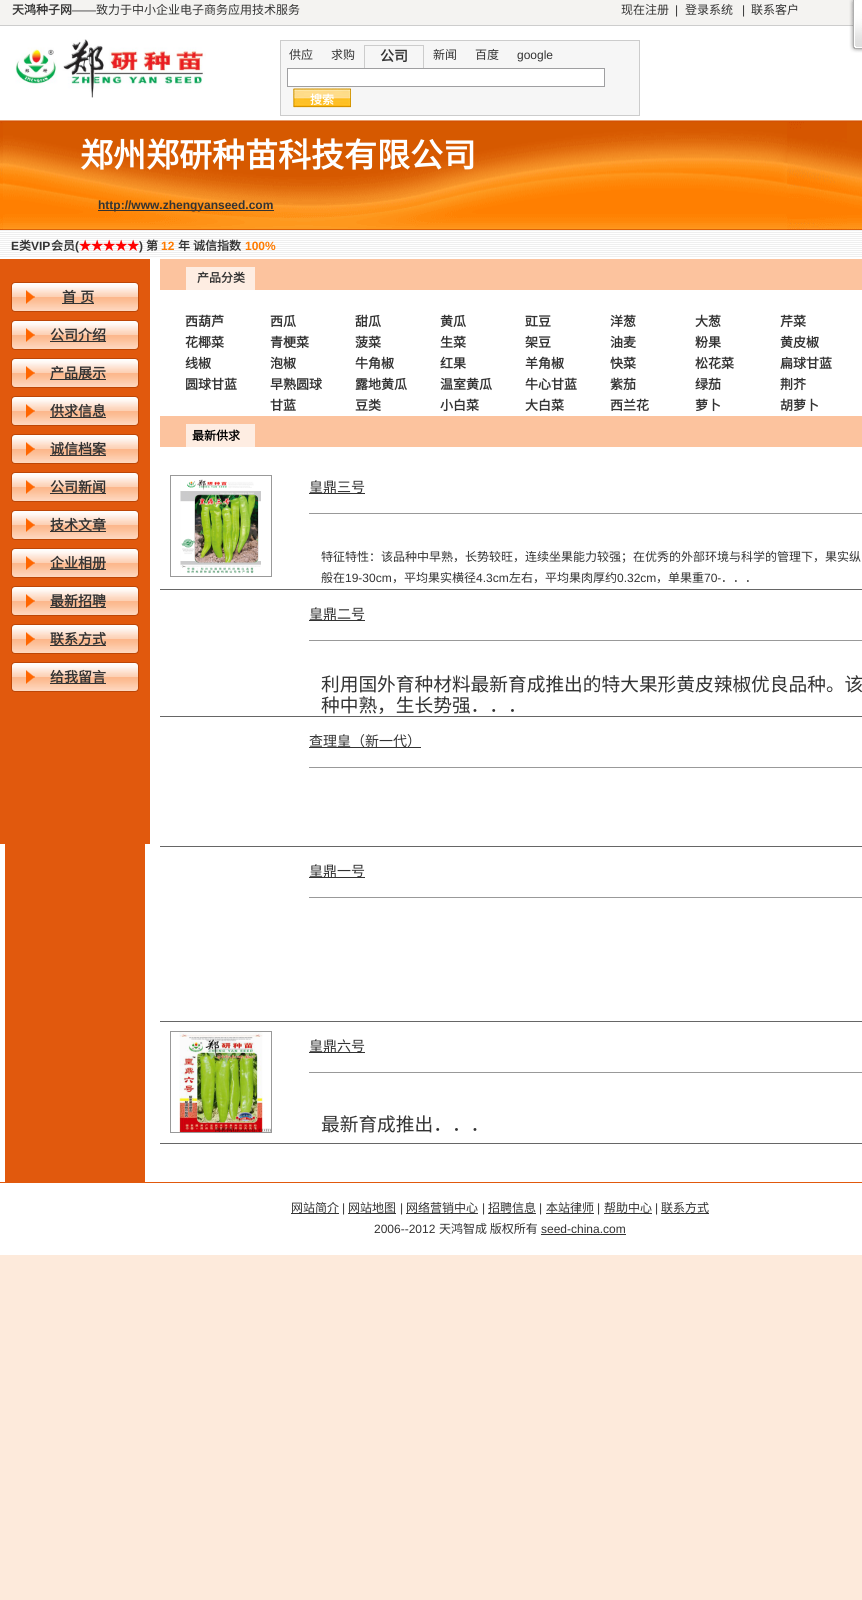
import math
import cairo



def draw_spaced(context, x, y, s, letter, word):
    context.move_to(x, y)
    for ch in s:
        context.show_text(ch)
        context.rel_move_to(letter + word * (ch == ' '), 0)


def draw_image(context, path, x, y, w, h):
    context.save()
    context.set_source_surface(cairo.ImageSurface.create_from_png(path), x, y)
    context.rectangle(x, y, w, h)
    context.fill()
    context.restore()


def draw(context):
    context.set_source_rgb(253 / 255, 234 / 255, 219 / 255)
    context.paint()
    context.set_source_rgb(1, 1, 1)
    context.rectangle(0, 26, 862, 1229)
    context.fill()
    context.set_source_rgb(244 / 255, 243 / 255, 241 / 255)
    context.rectangle(0, 0, 849, 25)
    context.fill()
    context.set_source_rgb(205 / 255, 205 / 255, 205 / 255)
    context.rectangle(0, 25, 849, 1)
    context.fill()
    draw_image(context, "images/1.png", 849, 0, 13, 53)
    draw_image(context, "images/2.png", 15, 39, 191, 59)
    context.set_source_rgb(246 / 255, 246 / 255, 246 / 255)
    context.rectangle(280.5, 40.5, 359, 75)
    context.fill_preserve()
    context.set_source_rgb(204 / 255, 204 / 255, 204 / 255)
    context.set_line_width(1)
    context.stroke()
    context.rectangle(364, 45, 60, 1)
    context.fill()
    context.rectangle(423, 45, 1, 23)
    context.fill()
    context.rectangle(364, 45, 1, 23)
    context.fill()
    context.set_source_rgb(1, 1, 1)
    context.rectangle(287.5, 68.5, 317, 18)
    context.fill_preserve()
    context.set_source_rgb(159 / 255, 159 / 255, 161 / 255)
    context.stroke()
    draw_image(context, "images/3.png", 293, 88, 58, 20)
    draw_image(context, "images/4.png", 0, 120, 862, 110)
    context.set_source_rgb(51 / 255, 51 / 255, 51 / 255)
    context.rectangle(98, 210, 176, 1)
    context.fill()
    draw_image(context, "images/5.png", 0, 230, 862, 27)
    context.set_source_rgb(225 / 255, 89 / 255, 13 / 255)
    context.rectangle(0, 259, 150, 585)
    context.fill()
    draw_image(context, "images/6.png", 11, 282, 128, 30)
    context.set_source_rgb(51 / 255, 51 / 255, 51 / 255)
    context.rectangle(62, 303, 32, 1)
    context.fill()
    draw_image(context, "images/6.png", 11, 320, 128, 30)
    context.rectangle(50, 341, 56, 1)
    context.fill()
    draw_image(context, "images/6.png", 11, 358, 128, 30)
    context.rectangle(50, 379, 56, 1)
    context.fill()
    draw_image(context, "images/6.png", 11, 396, 128, 30)
    context.rectangle(50, 417, 56, 1)
    context.fill()
    draw_image(context, "images/6.png", 11, 434, 128, 30)
    context.rectangle(50, 455, 56, 1)
    context.fill()
    draw_image(context, "images/6.png", 11, 472, 128, 30)
    context.rectangle(50, 493, 56, 1)
    context.fill()
    draw_image(context, "images/6.png", 11, 510, 128, 30)
    context.rectangle(50, 531, 56, 1)
    context.fill()
    draw_image(context, "images/6.png", 11, 548, 128, 30)
    context.rectangle(50, 569, 56, 1)
    context.fill()
    draw_image(context, "images/6.png", 11, 586, 128, 30)
    context.rectangle(50, 607, 56, 1)
    context.fill()
    draw_image(context, "images/6.png", 11, 624, 128, 30)
    context.rectangle(50, 645, 56, 1)
    context.fill()
    draw_image(context, "images/6.png", 11, 662, 128, 30)
    context.rectangle(50, 683, 56, 1)
    context.fill()
    context.set_source_rgb(225 / 255, 89 / 255, 13 / 255)
    context.rectangle(5, 844, 140, 338)
    context.fill()
    context.set_source_rgb(252 / 255, 195 / 255, 158 / 255)
    context.rectangle(160, 259, 702, 31)
    context.fill()
    context.set_source_rgb(254 / 255, 237 / 255, 226 / 255)
    context.rectangle(186, 267, 69, 23)
    context.fill()
    context.set_source_rgb(252 / 255, 195 / 255, 158 / 255)
    context.rectangle(160, 416, 702, 31)
    context.fill()
    context.set_source_rgb(254 / 255, 237 / 255, 226 / 255)
    context.rectangle(186, 424, 69, 23)
    context.fill()
    context.rectangle(170.5, 475.5, 101, 101)
    context.set_source_rgb(153 / 255, 153 / 255, 153 / 255)
    context.stroke()
    draw_image(context, "images/7.png", 180, 479, 81, 95)
    context.set_source_rgb(51 / 255, 51 / 255, 51 / 255)
    context.rectangle(309, 493, 56, 1)
    context.fill()
    context.set_source_rgb(153 / 255, 153 / 255, 153 / 255)
    context.rectangle(309, 513, 553, 1)
    context.fill()
    context.set_source_rgb(102 / 255, 102 / 255, 102 / 255)
    context.rectangle(160, 589, 702, 1)
    context.fill()
    context.set_source_rgb(51 / 255, 51 / 255, 51 / 255)
    context.rectangle(309, 620, 56, 1)
    context.fill()
    context.set_source_rgb(153 / 255, 153 / 255, 153 / 255)
    context.rectangle(309, 640, 553, 1)
    context.fill()
    context.set_source_rgb(102 / 255, 102 / 255, 102 / 255)
    context.rectangle(160, 716, 702, 1)
    context.fill()
    context.set_source_rgb(51 / 255, 51 / 255, 51 / 255)
    context.rectangle(309, 747, 112, 1)
    context.fill()
    context.set_source_rgb(153 / 255, 153 / 255, 153 / 255)
    context.rectangle(309, 767, 553, 1)
    context.fill()
    context.set_source_rgb(102 / 255, 102 / 255, 102 / 255)
    context.rectangle(160, 846, 702, 1)
    context.fill()
    context.set_source_rgb(51 / 255, 51 / 255, 51 / 255)
    context.rectangle(309, 877, 56, 1)
    context.fill()
    context.set_source_rgb(153 / 255, 153 / 255, 153 / 255)
    context.rectangle(309, 897, 553, 1)
    context.fill()
    context.set_source_rgb(102 / 255, 102 / 255, 102 / 255)
    context.rectangle(160, 1021, 702, 1)
    context.fill()
    context.rectangle(170.5, 1031.5, 101, 101)
    context.set_source_rgb(153 / 255, 153 / 255, 153 / 255)
    context.stroke()
    draw_image(context, "images/8.png", 179, 1032, 92, 100)
    context.set_source_rgb(51 / 255, 51 / 255, 51 / 255)
    context.rectangle(309, 1052, 56, 1)
    context.fill()
    context.set_source_rgb(153 / 255, 153 / 255, 153 / 255)
    context.rectangle(309, 1072, 553, 1)
    context.fill()
    context.set_source_rgb(102 / 255, 102 / 255, 102 / 255)
    context.rectangle(160, 1143, 702, 1)
    context.fill()
    context.set_source_rgb(225 / 255, 89 / 255, 13 / 255)
    context.rectangle(0, 1182, 862, 1)
    context.fill()
    context.set_source_rgb(51 / 255, 51 / 255, 51 / 255)
    context.rectangle(291, 1213, 48, 1)
    context.fill()
    context.rectangle(348, 1213, 48, 1)
    context.fill()
    context.rectangle(406, 1213, 72, 1)
    context.fill()
    context.rectangle(488, 1213, 48, 1)
    context.fill()
    context.rectangle(546, 1213, 48, 1)
    context.fill()
    context.rectangle(604, 1213, 48, 1)
    context.fill()
    context.rectangle(661, 1213, 48, 1)
    context.fill()
    context.rectangle(541, 1234, 85, 1)
    context.fill()
    context.select_font_face("Noto Sans CJK SC", cairo.FontSlant.NORMAL, cairo.FontWeight.BOLD)
    context.set_font_size(12)
    context.move_to(12, 14)
    context.show_text("天鸿种子网")
    context.select_font_face("Liberation Sans")
    context.move_to(72, 14)
    context.show_text("——")
    context.select_font_face("Noto Sans CJK SC")
    context.move_to(96, 14)
    context.show_text("致力于中小企业电子商务应用技术服务")
    context.move_to(621, 14)
    context.show_text("现在注册")
    context.select_font_face("Liberation Sans")
    context.move_to(675, 14)
    context.show_text("|")
    context.select_font_face("Noto Sans CJK SC")
    context.move_to(685, 14)
    context.show_text("登录系统")
    context.select_font_face("Liberation Sans")
    context.move_to(742, 14)
    context.show_text("|")
    context.select_font_face("Noto Sans CJK SC")
    context.move_to(751, 14)
    context.show_text("联系客户")
    context.move_to(289, 59)
    context.show_text("供应")
    context.move_to(331, 59)
    context.show_text("求购")
    context.select_font_face("Noto Sans CJK SC", cairo.FontSlant.NORMAL, cairo.FontWeight.BOLD)
    context.set_font_size(14)
    context.move_to(380, 61)
    context.show_text("公司")
    context.select_font_face("Noto Sans CJK SC")
    context.set_font_size(12)
    context.move_to(433, 59)
    context.show_text("新闻")
    context.move_to(475, 59)
    context.show_text("百度")
    context.select_font_face("Liberation Sans")
    context.move_to(517, 59)
    context.show_text("google")
    context.select_font_face("Noto Sans CJK SC", cairo.FontSlant.NORMAL, cairo.FontWeight.BOLD)
    context.set_source_rgb(1, 1, 1)
    context.move_to(310, 104)
    context.show_text("搜索")
    context.set_font_size(33)
    context.move_to(80, 167)
    context.show_text("郑州郑研种苗科技有限公司")
    context.select_font_face("Liberation Sans", cairo.FontSlant.NORMAL, cairo.FontWeight.BOLD)
    context.set_font_size(12)
    context.set_source_rgb(51 / 255, 51 / 255, 51 / 255)
    context.move_to(98, 209)
    context.show_text("http://www.zhengyanseed.com")
    context.move_to(11, 250)
    context.show_text("E")
    context.select_font_face("Noto Sans CJK SC", cairo.FontSlant.NORMAL, cairo.FontWeight.BOLD)
    context.move_to(19, 250)
    context.show_text("类")
    context.select_font_face("Liberation Sans", cairo.FontSlant.NORMAL, cairo.FontWeight.BOLD)
    context.move_to(31, 250)
    context.show_text("VIP")
    context.select_font_face("Noto Sans CJK SC", cairo.FontSlant.NORMAL, cairo.FontWeight.BOLD)
    context.move_to(51, 250)
    context.show_text("会员")
    context.select_font_face("Liberation Sans", cairo.FontSlant.NORMAL, cairo.FontWeight.BOLD)
    context.move_to(75, 250)
    context.show_text("(")
    context.select_font_face("Noto Sans CJK SC", cairo.FontSlant.NORMAL, cairo.FontWeight.BOLD)
    context.set_source_rgb(1, 0, 0)
    context.move_to(79, 250)
    context.show_text("★★★★★")
    context.select_font_face("Liberation Sans", cairo.FontSlant.NORMAL, cairo.FontWeight.BOLD)
    context.set_source_rgb(51 / 255, 51 / 255, 51 / 255)
    context.move_to(139, 250)
    context.show_text(")")
    context.select_font_face("Noto Sans CJK SC", cairo.FontSlant.NORMAL, cairo.FontWeight.BOLD)
    context.move_to(146, 250)
    context.show_text("第")
    context.select_font_face("Liberation Sans", cairo.FontSlant.NORMAL, cairo.FontWeight.BOLD)
    context.set_source_rgb(1, 123 / 255, 0)
    context.move_to(161, 250)
    context.show_text("12")
    context.select_font_face("Noto Sans CJK SC", cairo.FontSlant.NORMAL, cairo.FontWeight.BOLD)
    context.set_source_rgb(51 / 255, 51 / 255, 51 / 255)
    context.move_to(178, 250)
    context.show_text("年")
    context.move_to(193, 250)
    context.show_text("诚信指数")
    context.select_font_face("Liberation Sans", cairo.FontSlant.NORMAL, cairo.FontWeight.BOLD)
    context.set_source_rgb(1, 123 / 255, 0)
    context.move_to(245, 250)
    context.show_text("100%")
    context.select_font_face("Noto Sans CJK SC", cairo.FontSlant.NORMAL, cairo.FontWeight.BOLD)
    context.set_font_size(14)
    context.set_source_rgb(51 / 255, 51 / 255, 51 / 255)
    draw_spaced(context, 62, 302, "首 页", 0, 1)
    context.move_to(50, 340)
    context.show_text("公司介绍")
    context.move_to(50, 378)
    context.show_text("产品展示")
    context.move_to(50, 416)
    context.show_text("供求信息")
    context.move_to(50, 454)
    context.show_text("诚信档案")
    context.move_to(50, 492)
    context.show_text("公司新闻")
    context.move_to(50, 530)
    context.show_text("技术文章")
    context.move_to(50, 568)
    context.show_text("企业相册")
    context.move_to(50, 606)
    context.show_text("最新招聘")
    context.move_to(50, 644)
    context.show_text("联系方式")
    context.move_to(50, 682)
    context.show_text("给我留言")
    context.set_font_size(12)
    context.move_to(197, 282)
    context.show_text("产品分类")
    context.set_font_size(13)
    context.move_to(185, 326)
    context.show_text("西葫芦")
    context.move_to(270, 326)
    context.show_text("西瓜")
    context.move_to(355, 326)
    context.show_text("甜瓜")
    context.move_to(440, 326)
    context.show_text("黄瓜")
    context.move_to(525, 326)
    context.show_text("豇豆")
    context.move_to(610, 326)
    context.show_text("洋葱")
    context.move_to(695, 326)
    context.show_text("大葱")
    context.move_to(780, 326)
    context.show_text("芹菜")
    context.move_to(185, 347)
    context.show_text("花椰菜")
    context.move_to(270, 347)
    context.show_text("青梗菜")
    context.move_to(355, 347)
    context.show_text("菠菜")
    context.move_to(440, 347)
    context.show_text("生菜")
    context.move_to(525, 347)
    context.show_text("架豆")
    context.move_to(610, 347)
    context.show_text("油麦")
    context.move_to(695, 347)
    context.show_text("粉果")
    context.move_to(780, 347)
    context.show_text("黄皮椒")
    context.move_to(185, 368)
    context.show_text("线椒")
    context.move_to(270, 368)
    context.show_text("泡椒")
    context.move_to(355, 368)
    context.show_text("牛角椒")
    context.move_to(440, 368)
    context.show_text("红果")
    context.move_to(525, 368)
    context.show_text("羊角椒")
    context.move_to(610, 368)
    context.show_text("快菜")
    context.move_to(695, 368)
    context.show_text("松花菜")
    context.move_to(780, 368)
    context.show_text("扁球甘蓝")
    context.move_to(185, 389)
    context.show_text("圆球甘蓝")
    context.move_to(270, 389)
    context.show_text("早熟圆球")
    context.move_to(270, 410)
    context.show_text("甘蓝")
    context.move_to(355, 389)
    context.show_text("露地黄瓜")
    context.move_to(440, 389)
    context.show_text("温室黄瓜")
    context.move_to(525, 389)
    context.show_text("牛心甘蓝")
    context.move_to(610, 389)
    context.show_text("紫茄")
    context.move_to(695, 389)
    context.show_text("绿茄")
    context.move_to(780, 389)
    context.show_text("荆芥")
    context.move_to(355, 410)
    context.show_text("豆类")
    context.move_to(440, 410)
    context.show_text("小白菜")
    context.move_to(525, 410)
    context.show_text("大白菜")
    context.move_to(610, 410)
    context.show_text("西兰花")
    context.move_to(695, 410)
    context.show_text("萝卜")
    context.move_to(780, 410)
    context.show_text("胡萝卜")
    context.set_font_size(12)
    context.set_source_rgb(0, 0, 0)
    context.move_to(192, 440)
    context.show_text("最新供求")
    context.select_font_face("Noto Sans CJK SC")
    context.set_font_size(14)
    context.set_source_rgb(51 / 255, 51 / 255, 51 / 255)
    context.move_to(309, 492)
    context.show_text("皇鼎三号")
    context.set_font_size(12)
    context.move_to(321, 561)
    context.show_text("特征特性：该品种中早熟，长势较旺，连续坐果能力较强；在优秀的外部环境与科学的管理下，果实纵")
    context.move_to(321, 582)
    context.show_text("般在")
    context.select_font_face("Liberation Sans")
    context.move_to(345, 582)
    context.show_text("19-30cm")
    context.select_font_face("Noto Sans CJK SC")
    context.move_to(392, 582)
    context.show_text("，平均果实横径")
    context.select_font_face("Liberation Sans")
    context.move_to(476, 582)
    context.show_text("4.3cm")
    context.select_font_face("Noto Sans CJK SC")
    context.move_to(509, 582)
    context.show_text("左右，平均果肉厚约")
    context.select_font_face("Liberation Sans")
    context.move_to(617, 582)
    context.show_text("0.32cm")
    context.select_font_face("Noto Sans CJK SC")
    context.move_to(656, 582)
    context.show_text("，单果重")
    context.select_font_face("Liberation Sans")
    context.move_to(704, 582)
    context.show_text("70-")
    context.select_font_face("Noto Sans CJK SC")
    context.move_to(721, 582)
    context.show_text("．．．")
    context.set_font_size(14)
    context.move_to(309, 619)
    context.show_text("皇鼎二号")
    context.set_font_size(18.7)
    context.move_to(321, 691)
    context.show_text("利用国外育种材料最新育成推出的特大果形黄皮辣椒优良品种。该")
    context.move_to(321, 712)
    context.show_text("种中熟，生长势强．．．")
    context.set_font_size(14)
    context.move_to(309, 746)
    context.show_text("查理皇（新一代）")
    context.move_to(309, 876)
    context.show_text("皇鼎一号")
    context.move_to(309, 1051)
    context.show_text("皇鼎六号")
    context.set_font_size(18.7)
    context.move_to(321, 1131)
    context.show_text("最新育成推出．．．")
    context.set_font_size(12)
    context.move_to(291, 1212)
    context.show_text("网站简介")
    context.select_font_face("Liberation Sans")
    context.move_to(342, 1212)
    context.show_text("|")
    context.select_font_face("Noto Sans CJK SC")
    context.move_to(348, 1212)
    context.show_text("网站地图")
    context.select_font_face("Liberation Sans")
    context.move_to(400, 1212)
    context.show_text("|")
    context.select_font_face("Noto Sans CJK SC")
    context.move_to(406, 1212)
    context.show_text("网络营销中心")
    context.select_font_face("Liberation Sans")
    context.move_to(482, 1212)
    context.show_text("|")
    context.select_font_face("Noto Sans CJK SC")
    context.move_to(488, 1212)
    context.show_text("招聘信息")
    context.select_font_face("Liberation Sans")
    context.move_to(539, 1212)
    context.show_text("|")
    context.select_font_face("Noto Sans CJK SC")
    context.move_to(546, 1212)
    context.show_text("本站律师")
    context.select_font_face("Liberation Sans")
    context.move_to(597, 1212)
    context.show_text("|")
    context.select_font_face("Noto Sans CJK SC")
    context.move_to(604, 1212)
    context.show_text("帮助中心")
    context.select_font_face("Liberation Sans")
    context.move_to(655, 1212)
    context.show_text("|")
    context.select_font_face("Noto Sans CJK SC")
    context.move_to(661, 1212)
    context.show_text("联系方式")
    context.select_font_face("Liberation Sans")
    context.move_to(374, 1233)
    context.show_text("2006--2012")
    context.select_font_face("Noto Sans CJK SC")
    context.move_to(439, 1233)
    context.show_text("天鸿智成 版权所有")
    context.select_font_face("Liberation Sans")
    context.move_to(541, 1233)
    context.show_text("seed-china.com")


surface = cairo.ImageSurface(cairo.Format.RGB24, 862, 1600)
context = cairo.Context(surface)
options = cairo.FontOptions()
options.set_hint_metrics(cairo.HintMetrics.OFF)
options.set_hint_style(cairo.HintStyle.NONE)
context.set_font_options(options)
context.set_miter_limit(4)
draw(context)
surface.write_to_png("out.png")
